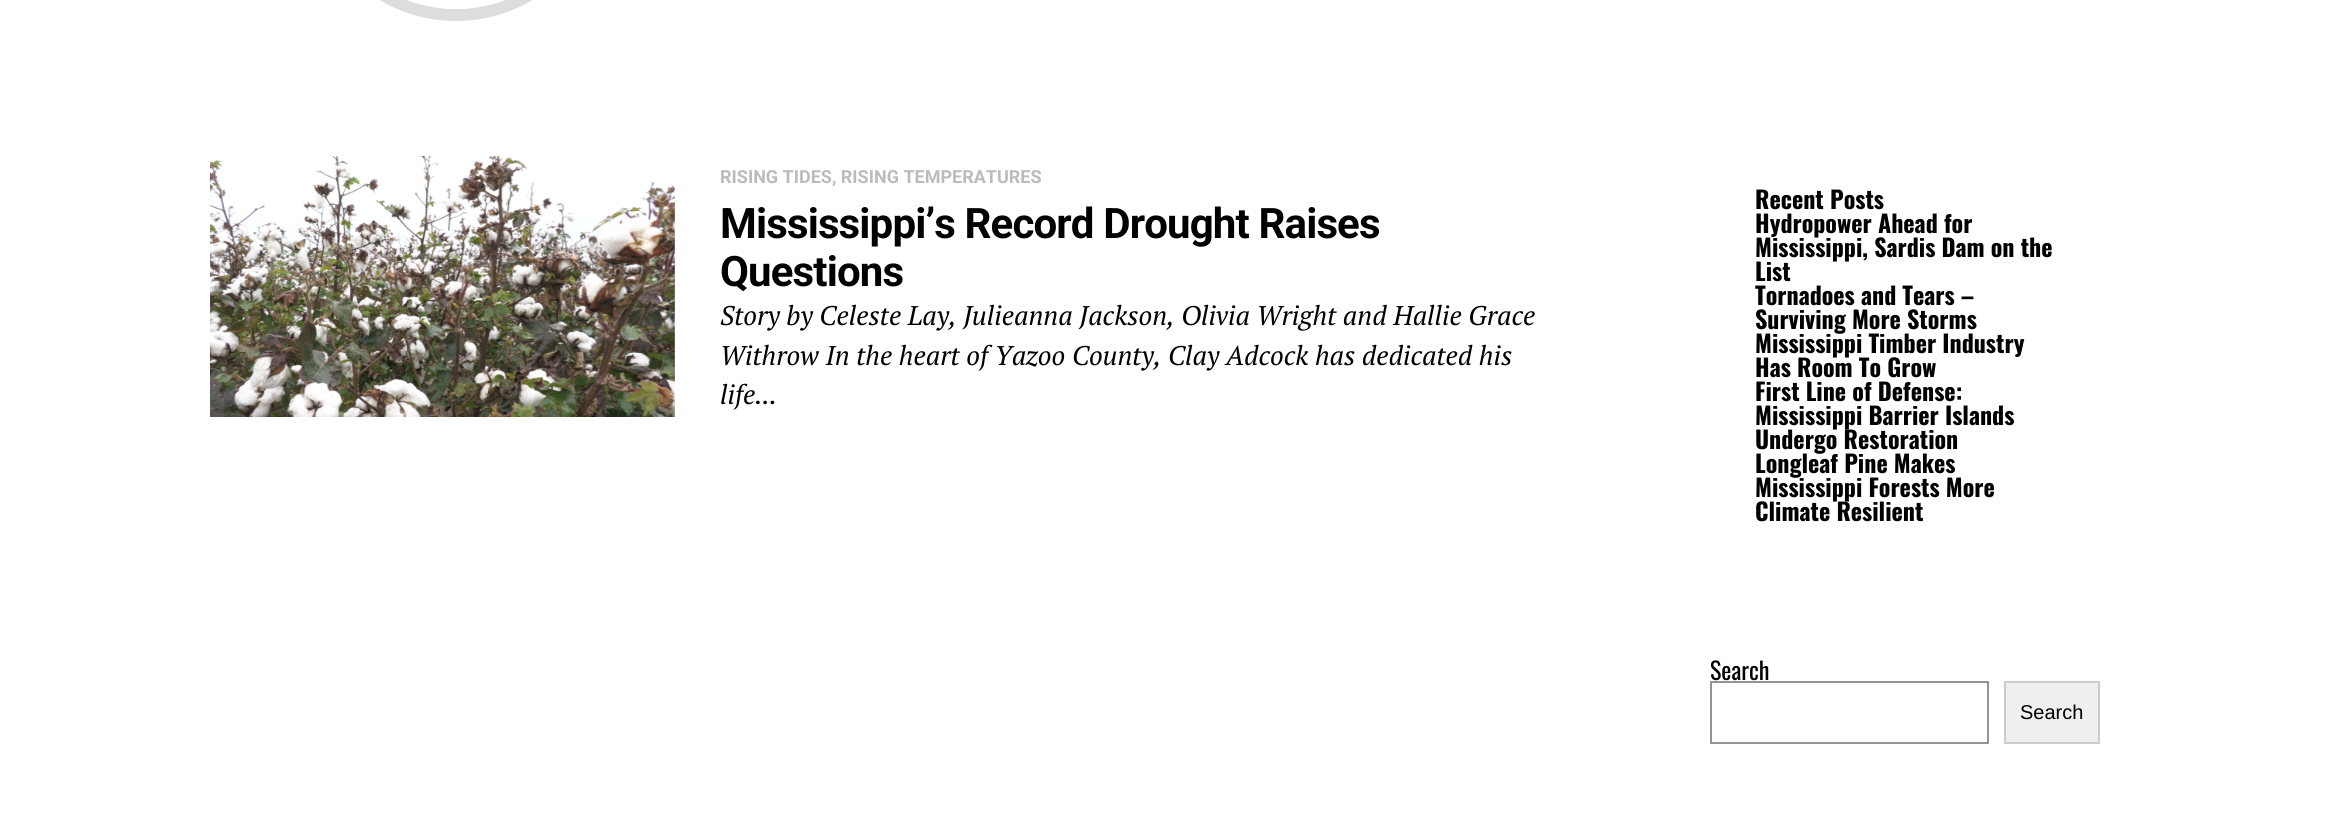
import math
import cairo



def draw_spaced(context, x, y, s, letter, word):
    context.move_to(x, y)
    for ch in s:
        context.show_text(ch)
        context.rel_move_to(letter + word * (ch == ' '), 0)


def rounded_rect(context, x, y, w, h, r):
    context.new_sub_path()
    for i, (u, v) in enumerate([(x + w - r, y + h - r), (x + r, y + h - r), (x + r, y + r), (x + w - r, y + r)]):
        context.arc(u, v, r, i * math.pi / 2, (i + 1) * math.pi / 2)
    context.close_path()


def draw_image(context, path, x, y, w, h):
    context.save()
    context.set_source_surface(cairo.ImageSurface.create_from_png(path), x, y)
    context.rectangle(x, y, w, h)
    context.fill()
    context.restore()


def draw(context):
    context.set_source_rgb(1, 1, 1)
    context.paint()
    rounded_rect(context, 312, -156, 288, 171, 144)
    context.set_source_rgb(221 / 255, 221 / 255, 221 / 255)
    context.set_line_width(12)
    context.stroke()
    draw_image(context, "images/1.png", 408, 0, 96, 9)
    draw_image(context, "images/2.png", 210, 156, 465, 261)
    context.rectangle(1711, 682, 277, 61)
    context.set_source_rgb(148 / 255, 148 / 255, 148 / 255)
    context.set_line_width(2)
    context.stroke()
    context.set_source_rgb(239 / 255, 239 / 255, 239 / 255)
    context.rectangle(2005, 682, 94, 61)
    context.fill_preserve()
    context.set_source_rgb(204 / 255, 204 / 255, 204 / 255)
    context.stroke()
    context.select_font_face("Roboto", cairo.FontSlant.NORMAL, cairo.FontWeight.BOLD)
    context.set_font_size(18)
    context.set_source_rgb(187 / 255, 187 / 255, 187 / 255)
    context.move_to(720, 183)
    context.show_text("RISING TIDES, RISING TEMPERATURES")
    context.set_font_size(42)
    context.set_source_rgb(0, 0, 0)
    draw_spaced(context, 720, 238, "Mississippi’s Record Drought Raises", -0.85, 0)
    draw_spaced(context, 720, 286, "Questions", -0.85, 0)
    context.select_font_face("PT Serif", cairo.FontSlant.ITALIC)
    context.set_font_size(27)
    context.move_to(720, 325)
    context.show_text("Story by Celeste Lay, Julieanna Jackson, Olivia Wright and Hallie Grace")
    context.move_to(720, 365)
    context.show_text("Withrow In the heart of Yazoo County, Clay Adcock has dedicated his")
    context.move_to(720, 404)
    context.show_text("life...")
    context.select_font_face("Oswald", cairo.FontSlant.NORMAL, cairo.FontWeight.BOLD)
    context.set_font_size(24)
    context.move_to(1755, 209)
    context.show_text("Recent Posts")
    context.move_to(1755, 233)
    context.show_text("Hydropower Ahead for")
    context.move_to(1755, 257)
    context.show_text("Mississippi, Sardis Dam on the")
    context.move_to(1755, 281)
    context.show_text("List")
    context.move_to(1755, 305)
    context.show_text("Tornadoes and Tears –")
    context.move_to(1755, 329)
    context.show_text("Surviving More Storms")
    context.move_to(1755, 353)
    context.show_text("Mississippi Timber Industry")
    context.move_to(1755, 377)
    context.show_text("Has Room To Grow")
    context.move_to(1755, 401)
    context.show_text("First Line of Defense:")
    context.move_to(1755, 425)
    context.show_text("Mississippi Barrier Islands")
    context.move_to(1755, 449)
    context.show_text("Undergo Restoration")
    context.move_to(1755, 473)
    context.show_text("Longleaf Pine Makes")
    context.move_to(1755, 497)
    context.show_text("Mississippi Forests More")
    context.move_to(1755, 521)
    context.show_text("Climate Resilient")
    context.select_font_face("Oswald")
    context.move_to(1710, 680)
    context.show_text("Search")
    context.select_font_face("Liberation Sans")
    context.set_font_size(20)
    context.move_to(2020, 719)
    context.show_text("Search")


surface = cairo.ImageSurface(cairo.Format.RGB24, 2339, 832)
context = cairo.Context(surface)
options = cairo.FontOptions()
options.set_hint_metrics(cairo.HintMetrics.OFF)
options.set_hint_style(cairo.HintStyle.NONE)
context.set_font_options(options)
context.set_miter_limit(4)
draw(context)
surface.write_to_png("out.png")
